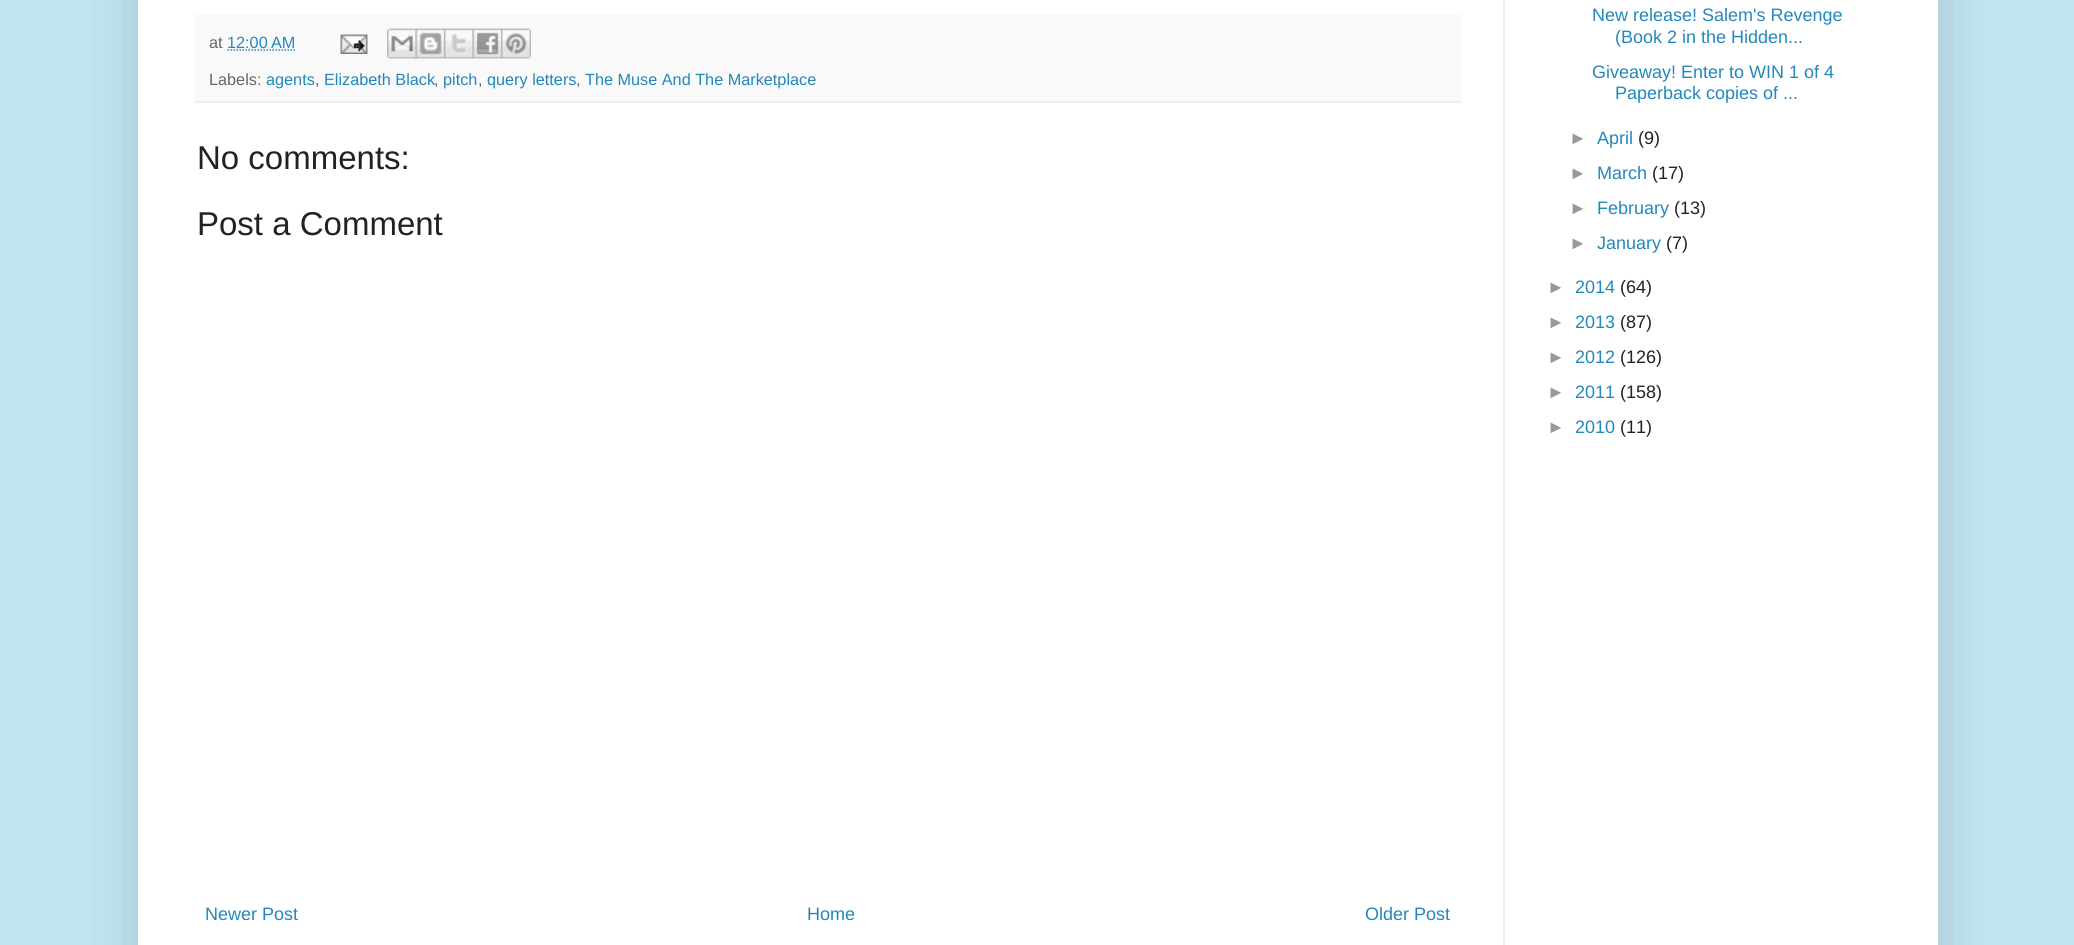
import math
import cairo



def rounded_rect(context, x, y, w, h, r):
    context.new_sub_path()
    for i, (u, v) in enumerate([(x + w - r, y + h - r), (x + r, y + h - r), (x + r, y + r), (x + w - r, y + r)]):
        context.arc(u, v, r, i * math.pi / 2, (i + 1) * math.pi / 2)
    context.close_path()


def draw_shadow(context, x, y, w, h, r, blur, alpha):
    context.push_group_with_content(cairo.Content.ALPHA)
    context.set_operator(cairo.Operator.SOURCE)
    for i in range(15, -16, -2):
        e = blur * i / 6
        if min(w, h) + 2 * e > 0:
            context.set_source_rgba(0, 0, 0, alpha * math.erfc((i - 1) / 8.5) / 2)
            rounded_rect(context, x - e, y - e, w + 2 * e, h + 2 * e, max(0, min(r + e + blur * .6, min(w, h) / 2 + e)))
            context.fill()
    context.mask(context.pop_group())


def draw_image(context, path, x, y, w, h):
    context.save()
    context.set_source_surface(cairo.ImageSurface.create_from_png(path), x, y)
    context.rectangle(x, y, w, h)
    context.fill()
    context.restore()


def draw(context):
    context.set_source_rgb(193 / 255, 229 / 255, 242 / 255)
    context.paint()
    context.set_source_rgb(0, 0, 0)
    draw_shadow(context, 138, -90, 1800, 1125, 0, 30, 0.15)
    context.set_source_rgb(1, 1, 1)
    context.rectangle(138, 0, 1800, 945)
    context.fill()
    context.set_source_rgb(238 / 255, 238 / 255, 238 / 255)
    context.rectangle(1503, 0, 2, 945)
    context.fill()
    context.set_source_rgb(249 / 255, 249 / 255, 249 / 255)
    context.rectangle(195, 14, 1266, 87)
    context.fill()
    context.set_source_rgb(238 / 255, 238 / 255, 238 / 255)
    context.rectangle(195, 101, 1266, 2)
    context.fill()
    context.new_path()
    context.move_to(227.5, 50)
    context.line_to(295.5, 50)
    context.set_source_rgb(34 / 255, 136 / 255, 187 / 255)
    context.set_line_width(1.5)
    context.set_dash([1.5, 1.5])
    context.stroke()
    draw_image(context, "images/1.png", 340, 34, 28, 20)
    draw_image(context, "images/2.png", 387, 28, 30, 31)
    draw_image(context, "images/3.png", 415, 28, 31, 31)
    draw_image(context, "images/4.png", 444, 28, 30, 31)
    draw_image(context, "images/5.png", 472, 28, 31, 31)
    draw_image(context, "images/6.png", 501, 28, 30, 31)
    context.select_font_face("Liberation Sans")
    context.set_font_size(16.25)
    context.set_source_rgb(102 / 255, 102 / 255, 102 / 255)
    context.move_to(209, 48)
    context.show_text("at")
    context.set_source_rgb(34 / 255, 136 / 255, 187 / 255)
    context.move_to(227, 48)
    context.show_text("12:00 AM")
    context.set_source_rgb(102 / 255, 102 / 255, 102 / 255)
    context.move_to(209, 85)
    context.show_text("Labels:")
    context.set_source_rgb(34 / 255, 136 / 255, 187 / 255)
    context.move_to(266, 85)
    context.show_text("agents")
    context.set_source_rgb(102 / 255, 102 / 255, 102 / 255)
    context.move_to(315, 85)
    context.show_text(",")
    context.set_source_rgb(34 / 255, 136 / 255, 187 / 255)
    context.move_to(324, 85)
    context.show_text("Elizabeth Black")
    context.set_source_rgb(102 / 255, 102 / 255, 102 / 255)
    context.move_to(434, 85)
    context.show_text(",")
    context.set_source_rgb(34 / 255, 136 / 255, 187 / 255)
    context.move_to(443, 85)
    context.show_text("pitch")
    context.set_source_rgb(102 / 255, 102 / 255, 102 / 255)
    context.move_to(478, 85)
    context.show_text(",")
    context.set_source_rgb(34 / 255, 136 / 255, 187 / 255)
    context.move_to(487, 85)
    context.show_text("query letters")
    context.set_source_rgb(102 / 255, 102 / 255, 102 / 255)
    context.move_to(576, 85)
    context.show_text(",")
    context.set_source_rgb(34 / 255, 136 / 255, 187 / 255)
    context.move_to(585, 85)
    context.show_text("The Muse And The Marketplace")
    context.set_font_size(33)
    context.set_source_rgb(34 / 255, 34 / 255, 34 / 255)
    context.move_to(197, 169)
    context.show_text("No comments:")
    context.move_to(197, 235)
    context.show_text("Post a Comment")
    context.set_font_size(18)
    context.set_source_rgb(34 / 255, 136 / 255, 187 / 255)
    context.move_to(205, 920)
    context.show_text("Newer Post")
    context.move_to(807, 920)
    context.show_text("Home")
    context.move_to(1365, 920)
    context.show_text("Older Post")
    context.move_to(1592, 21)
    context.show_text("New release! Salem's Revenge")
    context.move_to(1615, 43)
    context.show_text("(Book 2 in the Hidden...")
    context.move_to(1592, 78)
    context.show_text("Giveaway! Enter to WIN 1 of 4")
    context.move_to(1615, 99)
    context.show_text("Paperback copies of ...")
    context.set_source_rgb(153 / 255, 153 / 255, 153 / 255)
    context.move_to(1569, 144)
    context.show_text("►")
    context.set_source_rgb(34 / 255, 136 / 255, 187 / 255)
    context.move_to(1597, 144)
    context.show_text("April")
    context.set_source_rgb(34 / 255, 34 / 255, 34 / 255)
    context.move_to(1638, 144)
    context.show_text("(9)")
    context.set_source_rgb(153 / 255, 153 / 255, 153 / 255)
    context.move_to(1569, 179)
    context.show_text("►")
    context.set_source_rgb(34 / 255, 136 / 255, 187 / 255)
    context.move_to(1597, 179)
    context.show_text("March")
    context.set_source_rgb(34 / 255, 34 / 255, 34 / 255)
    context.move_to(1652, 179)
    context.show_text("(17)")
    context.set_source_rgb(153 / 255, 153 / 255, 153 / 255)
    context.move_to(1569, 214)
    context.show_text("►")
    context.set_source_rgb(34 / 255, 136 / 255, 187 / 255)
    context.move_to(1597, 214)
    context.show_text("February")
    context.set_source_rgb(34 / 255, 34 / 255, 34 / 255)
    context.move_to(1674, 214)
    context.show_text("(13)")
    context.set_source_rgb(153 / 255, 153 / 255, 153 / 255)
    context.move_to(1569, 249)
    context.show_text("►")
    context.set_source_rgb(34 / 255, 136 / 255, 187 / 255)
    context.move_to(1597, 249)
    context.show_text("January")
    context.set_source_rgb(34 / 255, 34 / 255, 34 / 255)
    context.move_to(1666, 249)
    context.show_text("(7)")
    context.set_source_rgb(153 / 255, 153 / 255, 153 / 255)
    context.move_to(1547, 293)
    context.show_text("►")
    context.set_source_rgb(34 / 255, 136 / 255, 187 / 255)
    context.move_to(1575, 293)
    context.show_text("2014")
    context.set_source_rgb(34 / 255, 34 / 255, 34 / 255)
    context.move_to(1620, 293)
    context.show_text("(64)")
    context.set_source_rgb(153 / 255, 153 / 255, 153 / 255)
    context.move_to(1547, 328)
    context.show_text("►")
    context.set_source_rgb(34 / 255, 136 / 255, 187 / 255)
    context.move_to(1575, 328)
    context.show_text("2013")
    context.set_source_rgb(34 / 255, 34 / 255, 34 / 255)
    context.move_to(1620, 328)
    context.show_text("(87)")
    context.set_source_rgb(153 / 255, 153 / 255, 153 / 255)
    context.move_to(1547, 363)
    context.show_text("►")
    context.set_source_rgb(34 / 255, 136 / 255, 187 / 255)
    context.move_to(1575, 363)
    context.show_text("2012")
    context.set_source_rgb(34 / 255, 34 / 255, 34 / 255)
    context.move_to(1620, 363)
    context.show_text("(126)")
    context.set_source_rgb(153 / 255, 153 / 255, 153 / 255)
    context.move_to(1547, 398)
    context.show_text("►")
    context.set_source_rgb(34 / 255, 136 / 255, 187 / 255)
    context.move_to(1575, 398)
    context.show_text("2011")
    context.set_source_rgb(34 / 255, 34 / 255, 34 / 255)
    context.move_to(1620, 398)
    context.show_text("(158)")
    context.set_source_rgb(153 / 255, 153 / 255, 153 / 255)
    context.move_to(1547, 433)
    context.show_text("►")
    context.set_source_rgb(34 / 255, 136 / 255, 187 / 255)
    context.move_to(1575, 433)
    context.show_text("2010")
    context.set_source_rgb(34 / 255, 34 / 255, 34 / 255)
    context.move_to(1620, 433)
    context.show_text("(11)")


surface = cairo.ImageSurface(cairo.Format.RGB24, 2074, 945)
context = cairo.Context(surface)
options = cairo.FontOptions()
options.set_hint_metrics(cairo.HintMetrics.OFF)
options.set_hint_style(cairo.HintStyle.NONE)
context.set_font_options(options)
context.set_miter_limit(4)
draw(context)
surface.write_to_png("out.png")
